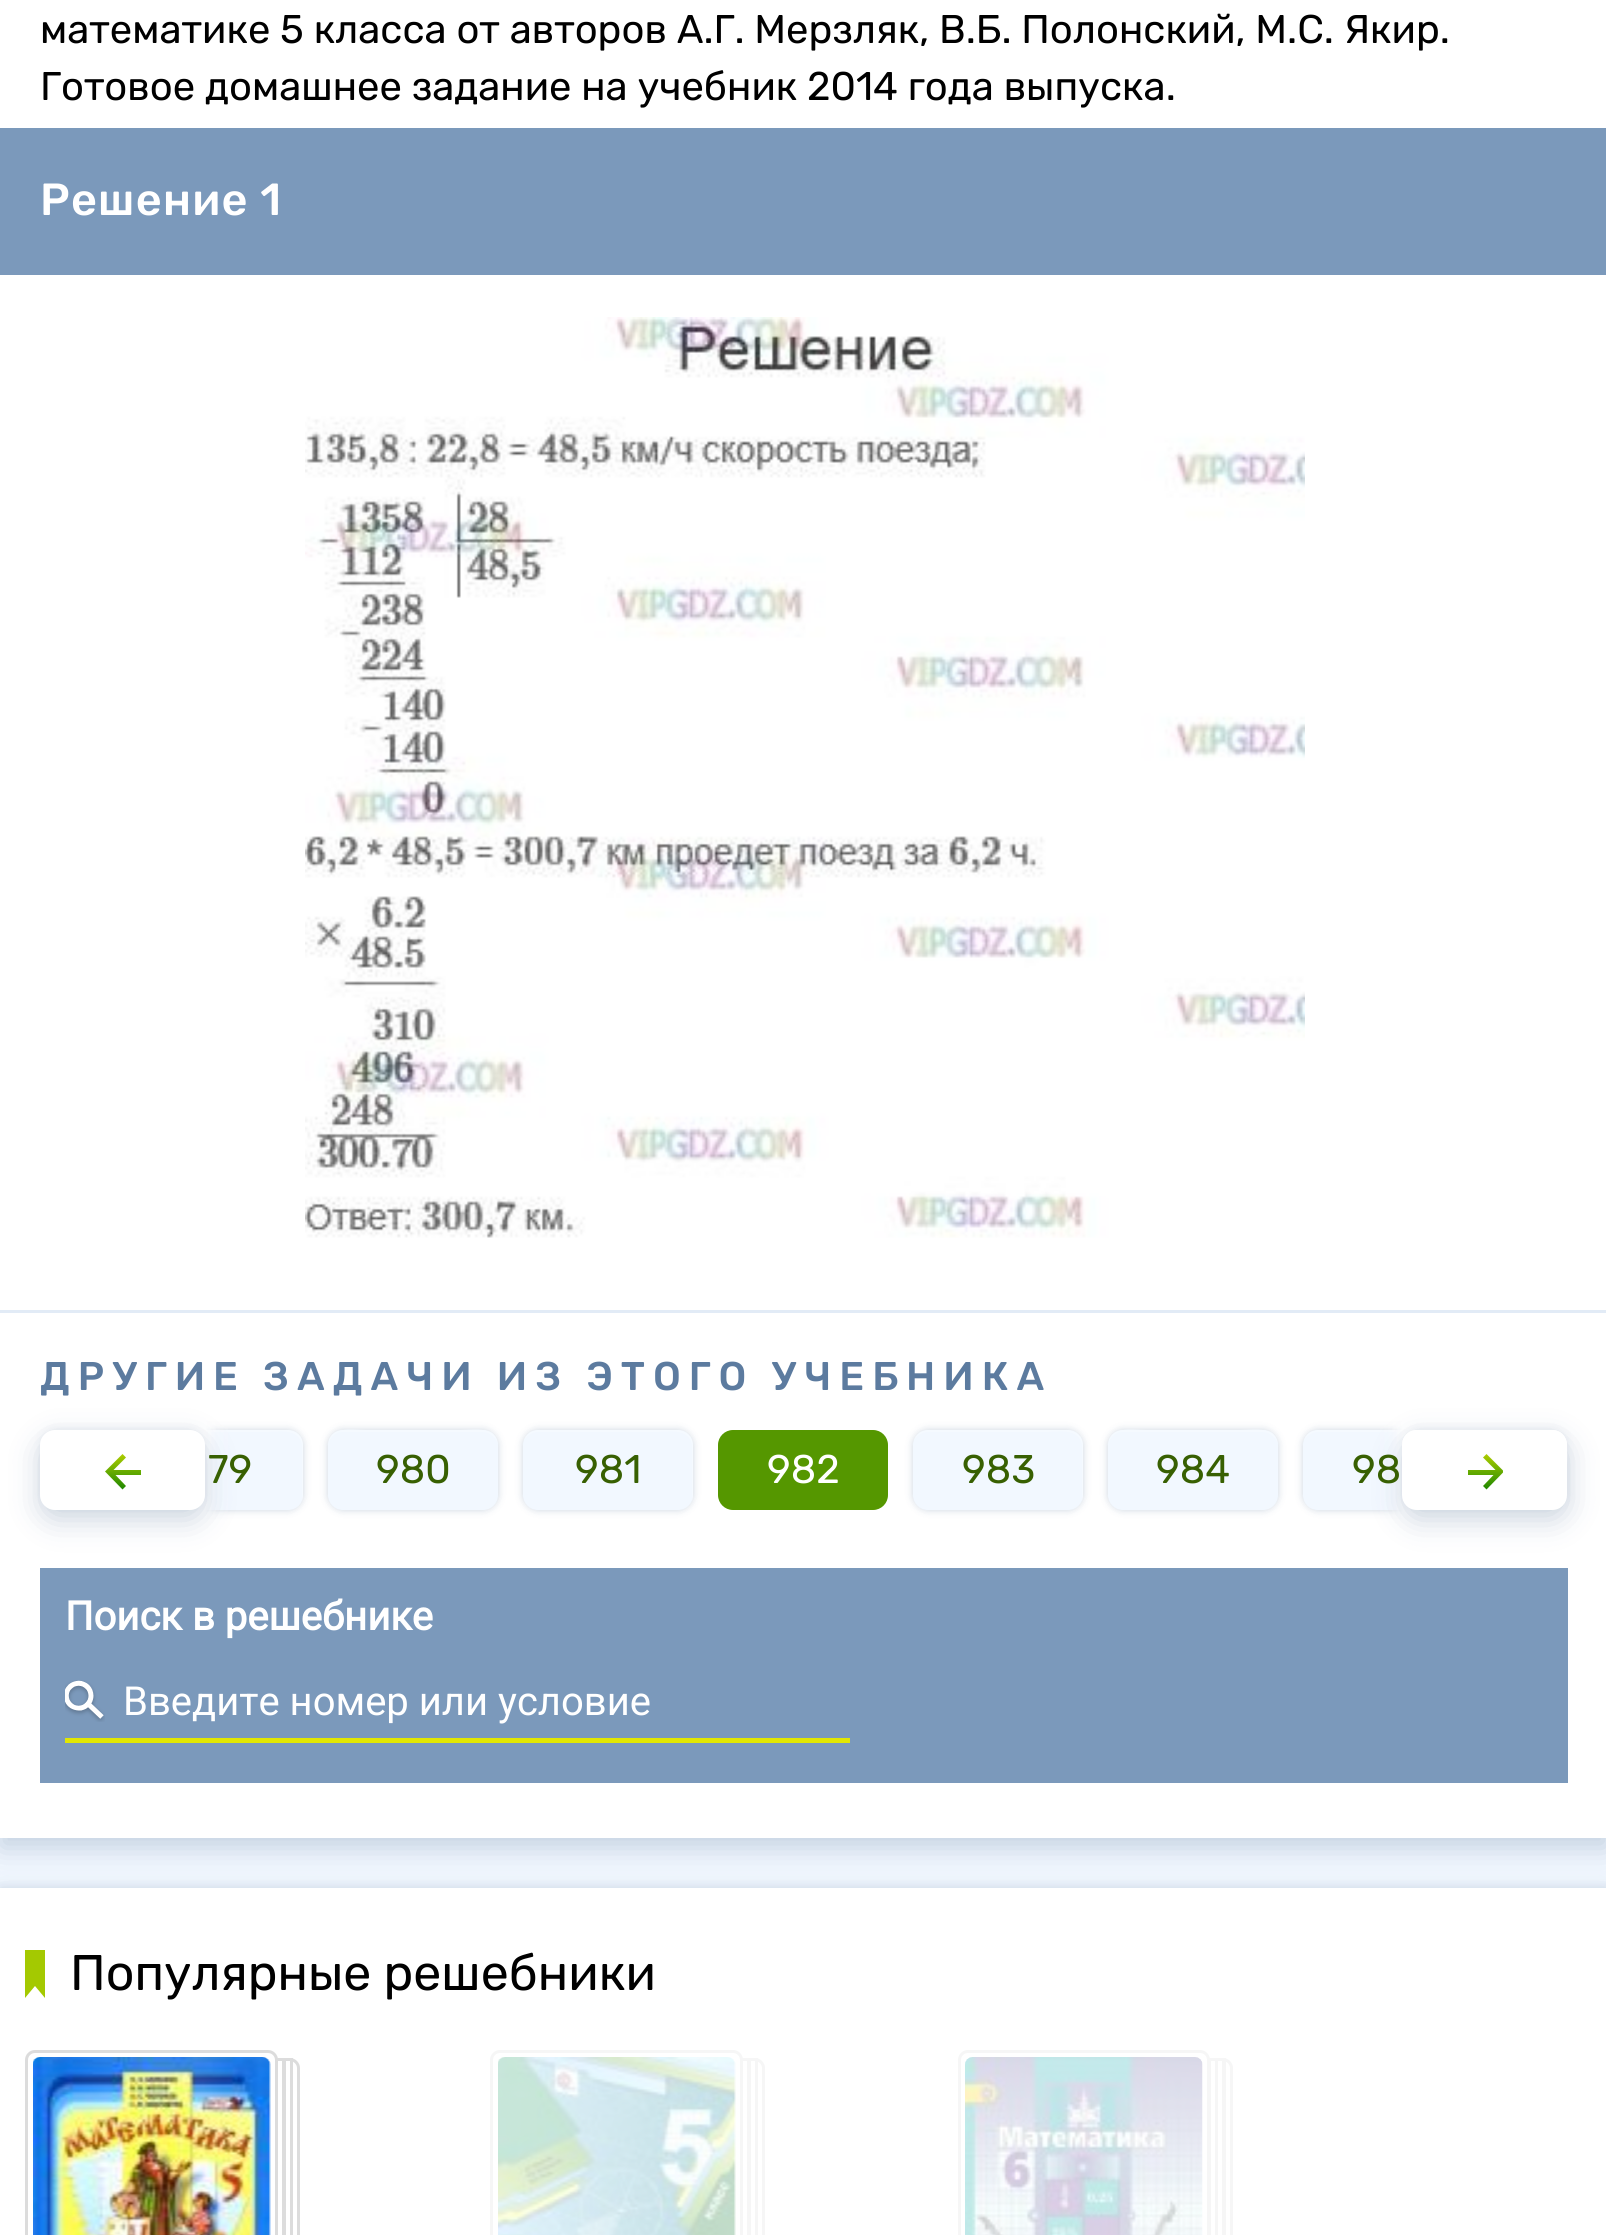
import math
import cairo



def draw_spaced(context, x, y, s, letter, word):
    context.move_to(x, y)
    for ch in s:
        context.show_text(ch)
        context.rel_move_to(letter + word * (ch == ' '), 0)


def rounded_rect(context, x, y, w, h, r):
    context.new_sub_path()
    for i, (u, v) in enumerate([(x + w - r, y + h - r), (x + r, y + h - r), (x + r, y + r), (x + w - r, y + r)]):
        context.arc(u, v, r, i * math.pi / 2, (i + 1) * math.pi / 2)
    context.close_path()


def draw_shadow(context, x, y, w, h, r, blur, alpha):
    context.push_group_with_content(cairo.Content.ALPHA)
    context.set_operator(cairo.Operator.SOURCE)
    for i in range(15, -16, -2):
        e = blur * i / 6
        if min(w, h) + 2 * e > 0:
            context.set_source_rgba(0, 0, 0, alpha * math.erfc((i - 1) / 8.5) / 2)
            rounded_rect(context, x - e, y - e, w + 2 * e, h + 2 * e, max(0, min(r + e + blur * .6, min(w, h) / 2 + e)))
            context.fill()
    context.mask(context.pop_group())


def draw_image(context, path, x, y, w, h):
    context.save()
    context.set_source_surface(cairo.ImageSurface.create_from_png(path), x, y)
    context.rectangle(x, y, w, h)
    context.fill()
    context.restore()


def draw(context):
    context.set_source_rgb(242 / 255, 248 / 255, 1)
    context.paint()
    context.set_source_rgb(0, 45 / 255, 98 / 255)
    draw_shadow(context, 0, -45, 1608, 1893, 0, 15, 0.2)
    context.set_source_rgb(1, 1, 1)
    context.rectangle(0, 0, 1606, 1838)
    context.fill()
    context.set_source_rgb(123 / 255, 153 / 255, 187 / 255)
    context.rectangle(0, 128, 1606, 147)
    context.fill()
    draw_image(context, "images/1.png", 305, 317, 1000, 921)
    context.set_source_rgb(226 / 255, 235 / 255, 246 / 255)
    context.rectangle(0, 1310, 1606, 3)
    context.fill()
    context.save()
    context.rectangle(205, 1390, 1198, 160)
    context.clip()
    context.set_source_rgb(0, 45 / 255, 98 / 255)
    draw_shadow(context, 133, 1430, 170, 80, 15, 4, 0.2)
    context.restore()
    context.set_source_rgb(242 / 255, 248 / 255, 1)
    context.new_path()
    context.move_to(205, 1430)
    context.line_to(288, 1430)
    context.curve_to(296.5, 1430, 303, 1436.5, 303, 1445)
    context.line_to(303, 1495)
    context.curve_to(303, 1503.5, 296.5, 1510, 288, 1510)
    context.line_to(205, 1510)
    context.close_path()
    context.fill()
    context.save()
    context.rectangle(205, 1390, 1198, 160)
    context.clip()
    context.set_source_rgba(1, 1, 1, 0.25)
    context.new_path()
    context.move_to(148, 1432)
    context.line_to(265, 1432)
    context.curve_to(277, 1432, 299, 1427, 302, 1445)
    context.line_to(302, 1501)
    context.curve_to(303, 1499, 303, 1497, 303, 1495)
    context.line_to(303, 1445)
    context.curve_to(303, 1437, 296, 1430, 288, 1430)
    context.line_to(148, 1430)
    context.curve_to(141, 1430, 135, 1435, 134, 1441)
    context.curve_to(136, 1436, 142, 1432, 148, 1432)
    context.close_path()
    context.fill()
    context.restore()
    context.save()
    context.set_fill_rule(cairo.FillRule.EVEN_ODD)
    context.new_path()
    context.move_to(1, 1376)
    context.line_to(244, 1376)
    context.line_to(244, 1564)
    context.line_to(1, 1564)
    context.close_path()
    context.move_to(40, 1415)
    context.line_to(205, 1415)
    context.line_to(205, 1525)
    context.line_to(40, 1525)
    context.close_path()
    context.clip()
    context.set_source_rgb(1, 1, 1)
    draw_shadow(context, 40, 1415, 165, 110, 0, 12.5, 1)
    context.restore()
    context.save()
    context.set_fill_rule(cairo.FillRule.EVEN_ODD)
    context.new_path()
    context.move_to(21, 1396)
    context.line_to(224, 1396)
    context.line_to(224, 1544)
    context.line_to(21, 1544)
    context.close_path()
    context.move_to(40, 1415)
    context.line_to(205, 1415)
    context.line_to(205, 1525)
    context.line_to(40, 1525)
    context.close_path()
    context.clip()
    context.set_source_rgb(1, 1, 1)
    draw_shadow(context, 40, 1415, 165, 110, 0, 6, 1)
    context.restore()
    context.save()
    context.set_fill_rule(cairo.FillRule.EVEN_ODD)
    context.new_path()
    context.move_to(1, 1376)
    context.line_to(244, 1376)
    context.line_to(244, 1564)
    context.line_to(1, 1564)
    context.close_path()
    context.move_to(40, 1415)
    context.line_to(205, 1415)
    context.line_to(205, 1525)
    context.line_to(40, 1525)
    context.close_path()
    context.clip()
    context.set_source_rgb(1, 1, 1)
    draw_shadow(context, 40, 1415, 165, 110, 0, 12.5, 1)
    context.restore()
    context.save()
    context.set_fill_rule(cairo.FillRule.EVEN_ODD)
    context.new_path()
    context.move_to(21, 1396)
    context.line_to(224, 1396)
    context.line_to(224, 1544)
    context.line_to(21, 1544)
    context.close_path()
    context.move_to(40, 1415)
    context.line_to(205, 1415)
    context.line_to(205, 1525)
    context.line_to(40, 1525)
    context.close_path()
    context.clip()
    context.set_source_rgb(1, 1, 1)
    draw_shadow(context, 40, 1415, 165, 110, 0, 6, 1)
    context.restore()
    context.save()
    context.rectangle(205, 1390, 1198, 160)
    context.clip()
    context.set_source_rgb(0, 45 / 255, 98 / 255)
    draw_shadow(context, 1303, 1430, 170, 80, 15, 4, 0.2)
    context.restore()
    context.new_path()
    context.move_to(1318, 1430)
    context.line_to(1403, 1430)
    context.line_to(1403, 1510)
    context.line_to(1318, 1510)
    context.curve_to(1309.5, 1510, 1303, 1503.5, 1303, 1495)
    context.line_to(1303, 1445)
    context.curve_to(1303, 1436.5, 1309.5, 1430, 1318, 1430)
    context.close_path()
    context.fill()
    context.save()
    context.rectangle(205, 1390, 1198, 160)
    context.clip()
    context.set_source_rgba(1, 1, 1, 0.25)
    context.new_path()
    context.move_to(1318, 1432)
    context.line_to(1435, 1432)
    context.curve_to(1447, 1432, 1469, 1427, 1472, 1445)
    context.line_to(1472, 1501)
    context.curve_to(1473, 1499, 1473, 1497, 1473, 1495)
    context.line_to(1473, 1445)
    context.curve_to(1473, 1437, 1466, 1430, 1458, 1430)
    context.line_to(1318, 1430)
    context.curve_to(1311, 1430, 1305, 1435, 1304, 1441)
    context.curve_to(1306, 1436, 1312, 1432, 1318, 1432)
    context.close_path()
    context.fill()
    context.restore()
    context.save()
    context.set_fill_rule(cairo.FillRule.EVEN_ODD)
    context.new_path()
    context.move_to(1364, 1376)
    context.line_to(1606, 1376)
    context.line_to(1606, 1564)
    context.line_to(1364, 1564)
    context.close_path()
    context.move_to(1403, 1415)
    context.line_to(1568, 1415)
    context.line_to(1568, 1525)
    context.line_to(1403, 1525)
    context.close_path()
    context.clip()
    context.set_source_rgb(1, 1, 1)
    draw_shadow(context, 1403, 1415, 165, 110, 0, 12.5, 1)
    context.restore()
    context.save()
    context.set_fill_rule(cairo.FillRule.EVEN_ODD)
    context.new_path()
    context.move_to(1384, 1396)
    context.line_to(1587, 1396)
    context.line_to(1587, 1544)
    context.line_to(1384, 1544)
    context.close_path()
    context.move_to(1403, 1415)
    context.line_to(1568, 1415)
    context.line_to(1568, 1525)
    context.line_to(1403, 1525)
    context.close_path()
    context.clip()
    context.set_source_rgb(1, 1, 1)
    draw_shadow(context, 1403, 1415, 165, 110, 0, 6, 1)
    context.restore()
    context.save()
    context.set_fill_rule(cairo.FillRule.EVEN_ODD)
    context.new_path()
    context.move_to(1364, 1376)
    context.line_to(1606, 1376)
    context.line_to(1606, 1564)
    context.line_to(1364, 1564)
    context.close_path()
    context.move_to(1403, 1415)
    context.line_to(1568, 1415)
    context.line_to(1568, 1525)
    context.line_to(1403, 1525)
    context.close_path()
    context.clip()
    context.set_source_rgb(1, 1, 1)
    draw_shadow(context, 1403, 1415, 165, 110, 0, 12.5, 1)
    context.restore()
    context.save()
    context.set_fill_rule(cairo.FillRule.EVEN_ODD)
    context.new_path()
    context.move_to(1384, 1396)
    context.line_to(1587, 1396)
    context.line_to(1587, 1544)
    context.line_to(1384, 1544)
    context.close_path()
    context.move_to(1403, 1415)
    context.line_to(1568, 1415)
    context.line_to(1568, 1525)
    context.line_to(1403, 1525)
    context.close_path()
    context.clip()
    context.set_source_rgb(1, 1, 1)
    draw_shadow(context, 1403, 1415, 165, 110, 0, 6, 1)
    context.restore()
    context.set_source_rgb(0, 45 / 255, 98 / 255)
    draw_shadow(context, 40, 1440, 165, 80, 15, 15, 0.2)
    draw_shadow(context, 40, 1428, 165, 80, 15, 4, 0.06)
    context.set_source_rgb(1, 1, 1)
    rounded_rect(context, 40, 1430, 165, 80, 15)
    context.fill()
    gradient = cairo.LinearGradient(87, 1488, 87, 1434)
    gradient.add_color_stop_rgba(0, 36 / 255, 138 / 255, 0, 1)
    gradient.add_color_stop_rgba(1, 1, 245 / 255, 0, 1)
    context.set_source(gradient)
    context.set_fill_rule(cairo.FillRule.EVEN_ODD)
    context.new_path()
    context.move_to(113.5, 1470)
    context.line_to(126, 1457.5)
    context.line_to(122.5, 1454)
    context.line_to(105, 1471.5)
    context.line_to(122.5, 1489.5)
    context.line_to(126, 1486)
    context.line_to(115.5, 1475)
    context.line_to(141, 1475)
    context.line_to(141, 1470)
    context.close_path()
    context.fill()
    context.set_source_rgb(0, 45 / 255, 98 / 255)
    draw_shadow(context, 328, 1430, 170, 80, 15, 4, 0.2)
    context.set_source_rgb(242 / 255, 248 / 255, 1)
    rounded_rect(context, 328, 1430, 170, 80, 15)
    context.fill()
    context.set_source_rgb(245 / 255, 250 / 255, 1)
    context.set_fill_rule(cairo.FillRule.WINDING)
    context.new_path()
    context.move_to(342, 1432)
    context.line_to(482, 1432)
    context.curve_to(491, 1432, 498, 1439, 498, 1448)
    context.curve_to(498, 1425, 477, 1430, 460, 1430)
    context.line_to(366, 1430)
    context.curve_to(349, 1430, 328, 1425, 328, 1448)
    context.curve_to(328, 1439, 334, 1432, 342, 1432)
    context.close_path()
    context.fill()
    context.set_source_rgb(0, 45 / 255, 98 / 255)
    draw_shadow(context, 523, 1430, 170, 80, 15, 4, 0.2)
    context.set_source_rgb(242 / 255, 248 / 255, 1)
    rounded_rect(context, 523, 1430, 170, 80, 15)
    context.fill()
    context.set_source_rgba(1, 1, 1, 0.25)
    context.new_path()
    context.move_to(538, 1432)
    context.line_to(655, 1432)
    context.curve_to(667, 1432, 689, 1427, 692, 1445)
    context.line_to(692, 1501)
    context.curve_to(693, 1499, 693, 1497, 693, 1495)
    context.line_to(693, 1445)
    context.curve_to(693, 1437, 686, 1430, 678, 1430)
    context.line_to(538, 1430)
    context.curve_to(531, 1430, 525, 1435, 524, 1441)
    context.curve_to(526, 1436, 532, 1432, 538, 1432)
    context.close_path()
    context.fill()
    context.set_source_rgb(85 / 255, 151 / 255, 0)
    rounded_rect(context, 718, 1430, 170, 80, 15)
    context.fill()
    context.set_source_rgb(0, 45 / 255, 98 / 255)
    draw_shadow(context, 913, 1430, 170, 80, 15, 4, 0.2)
    context.set_source_rgb(242 / 255, 248 / 255, 1)
    rounded_rect(context, 913, 1430, 170, 80, 15)
    context.fill()
    context.set_source_rgba(1, 1, 1, 0.25)
    context.new_path()
    context.move_to(928, 1432)
    context.line_to(1045, 1432)
    context.curve_to(1057, 1432, 1079, 1427, 1082, 1445)
    context.line_to(1082, 1501)
    context.curve_to(1083, 1499, 1083, 1497, 1083, 1495)
    context.line_to(1083, 1445)
    context.curve_to(1083, 1437, 1076, 1430, 1068, 1430)
    context.line_to(928, 1430)
    context.curve_to(921, 1430, 915, 1435, 914, 1441)
    context.curve_to(916, 1436, 922, 1432, 928, 1432)
    context.close_path()
    context.fill()
    context.set_source_rgb(0, 45 / 255, 98 / 255)
    draw_shadow(context, 1108, 1430, 170, 80, 15, 4, 0.2)
    context.set_source_rgb(242 / 255, 248 / 255, 1)
    rounded_rect(context, 1108, 1430, 170, 80, 15)
    context.fill()
    context.set_source_rgb(245 / 255, 250 / 255, 1)
    context.new_path()
    context.move_to(1122, 1432)
    context.line_to(1262, 1432)
    context.curve_to(1271, 1432, 1278, 1439, 1278, 1448)
    context.curve_to(1278, 1425, 1257, 1430, 1240, 1430)
    context.line_to(1146, 1430)
    context.curve_to(1129, 1430, 1108, 1425, 1108, 1448)
    context.curve_to(1108, 1439, 1114, 1432, 1122, 1432)
    context.close_path()
    context.fill()
    context.set_source_rgb(0, 45 / 255, 98 / 255)
    draw_shadow(context, 1403, 1440, 165, 80, 15, 15, 0.2)
    draw_shadow(context, 1403, 1428, 165, 80, 15, 4, 0.06)
    context.set_source_rgb(1, 1, 1)
    context.new_path()
    context.move_to(1552, 1430)
    context.line_to(1417, 1430)
    context.curve_to(1408, 1430, 1402, 1437, 1402, 1445)
    context.line_to(1402, 1495)
    context.curve_to(1402, 1503, 1408, 1510, 1417, 1510)
    context.line_to(1552, 1510)
    context.curve_to(1561, 1510, 1567, 1503, 1567, 1495)
    context.line_to(1567, 1445)
    context.curve_to(1567, 1437, 1561, 1430, 1552, 1430)
    context.close_path()
    context.fill()
    context.new_path()
    context.move_to(1552, 1432)
    context.line_to(1440, 1432)
    context.curve_to(1427, 1432, 1405, 1427, 1402, 1445)
    context.line_to(1402, 1499)
    context.line_to(1402, 1495)
    context.line_to(1402, 1445)
    context.curve_to(1402, 1437, 1408, 1430, 1417, 1430)
    context.line_to(1552, 1430)
    context.curve_to(1561, 1430, 1567, 1437, 1567, 1445)
    context.line_to(1567, 1495)
    context.line_to(1567, 1499)
    context.line_to(1567, 1465)
    context.curve_to(1567, 1453, 1570, 1432, 1552, 1432)
    context.close_path()
    context.fill()
    context.save()
    context.rectangle(1465, 1453, 38, 37)
    context.clip()
    gradient = cairo.LinearGradient(1522, 1488, 1522, 1434)
    gradient.add_color_stop_rgba(0, 36 / 255, 138 / 255, 0, 1)
    gradient.add_color_stop_rgba(1, 1, 245 / 255, 0, 1)
    context.set_source(gradient)
    context.set_fill_rule(cairo.FillRule.EVEN_ODD)
    context.new_path()
    context.move_to(1495.5, 1470)
    context.line_to(1483, 1457.5)
    context.line_to(1486.5, 1454)
    context.line_to(1504, 1471.5)
    context.line_to(1486.5, 1489.5)
    context.line_to(1483, 1486)
    context.line_to(1493.5, 1475)
    context.line_to(1468, 1475)
    context.line_to(1468, 1470)
    context.close_path()
    context.fill()
    context.restore()
    context.set_source_rgb(123 / 255, 153 / 255, 187 / 255)
    context.rectangle(40, 1568, 1528, 215)
    context.fill()
    draw_image(context, "images/2.png", 65, 1680, 40, 42)
    context.set_source_rgb(226 / 255, 231 / 255, 1 / 255)
    context.rectangle(65, 1738, 785, 5)
    context.fill()
    context.set_source_rgb(0, 45 / 255, 98 / 255)
    draw_shadow(context, 0, 1898, 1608, 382, 0, 15, 0.2)
    draw_shadow(context, 0, 1885, 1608, 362, 0, 4, 0.06)
    context.set_source_rgb(1, 1, 1)
    context.rectangle(0, 1888, 1606, 347)
    context.fill()
    context.set_source_rgb(164 / 255, 201 / 255, 1 / 255)
    context.new_path()
    context.move_to(25, 1950)
    context.line_to(45, 1950)
    context.line_to(45, 1998)
    context.line_to(35, 1986)
    context.line_to(25, 1998)
    context.close_path()
    context.fill()
    rounded_rect(context, 26.5, 2051.5, 250, 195, 8.5)
    context.set_source_rgb(220 / 255, 220 / 255, 220 / 255)
    context.set_line_width(3)
    context.stroke()
    draw_image(context, "images/3.png", 33, 2057, 238, 178)
    context.rectangle(276.5, 2059.5, 7, 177)
    context.stroke()
    context.rectangle(284.5, 2059.5, 7, 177)
    context.stroke()
    context.new_path()
    context.move_to(291.5, 2059.5)
    context.line_to(290, 2059.5)
    context.curve_to(294.5, 2059.5, 298.5, 2063.5, 298.5, 2068)
    context.line_to(298.5, 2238)
    context.curve_to(298.5, 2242.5, 294.5, 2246.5, 290, 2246.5)
    context.line_to(291.5, 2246.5)
    context.close_path()
    context.stroke()
    rounded_rect(context, 491.5, 2051.5, 250, 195, 8.5)
    context.set_source_rgb(246 / 255, 246 / 255, 246 / 255)
    context.stroke()
    draw_image(context, "images/4.png", 498, 2057, 238, 178)
    context.rectangle(741.5, 2059.5, 7, 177)
    context.stroke()
    context.rectangle(749.5, 2059.5, 7, 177)
    context.stroke()
    context.new_path()
    context.move_to(756.5, 2059.5)
    context.line_to(755, 2059.5)
    context.curve_to(759.5, 2059.5, 763.5, 2063.5, 763.5, 2068)
    context.line_to(763.5, 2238)
    context.curve_to(763.5, 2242.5, 759.5, 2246.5, 755, 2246.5)
    context.line_to(756.5, 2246.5)
    context.close_path()
    context.stroke()
    rounded_rect(context, 959.5, 2051.5, 249, 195, 8.5)
    context.stroke()
    draw_image(context, "images/5.png", 965, 2057, 238, 178)
    context.rectangle(1209.5, 2059.5, 7, 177)
    context.stroke()
    context.rectangle(1216.5, 2059.5, 7, 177)
    context.stroke()
    context.new_path()
    context.move_to(1224.5, 2059.5)
    context.line_to(1223, 2059.5)
    context.curve_to(1227.5, 2059.5, 1231.5, 2063.5, 1231.5, 2068)
    context.line_to(1231.5, 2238)
    context.curve_to(1231.5, 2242.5, 1227.5, 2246.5, 1223, 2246.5)
    context.line_to(1224.5, 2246.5)
    context.close_path()
    context.stroke()
    context.select_font_face("Rubik")
    context.set_font_size(40)
    context.set_source_rgb(0, 0, 0)
    context.move_to(40, 43)
    context.show_text("математике 5 класса от авторов А.Г. Мерзляк, В.Б. Полонский, М.С. Якир.")
    context.move_to(40, 100)
    context.show_text("Готовое домашнее задание на учебник 2014 года выпуска.")
    context.select_font_face("Rubik Medium")
    context.set_font_size(45)
    context.set_source_rgb(1, 1, 1)
    draw_spaced(context, 40, 215, "Решение 1", 1.25, 0)
    context.set_font_size(40)
    context.set_source_rgb(92 / 255, 123 / 255, 159 / 255)
    draw_spaced(context, 40, 1390, "ДРУГИЕ ЗАДАЧИ ИЗ ЭТОГО УЧЕБНИКА", 8, 0)
    context.select_font_face("Rubik")
    context.set_source_rgb(56 / 255, 96 / 255, 2 / 255)
    context.move_to(208, 1483)
    context.show_text("79")
    context.move_to(376, 1483)
    context.show_text("980")
    context.move_to(575, 1483)
    context.show_text("981")
    context.set_source_rgb(1, 1, 1)
    context.move_to(767, 1483)
    context.show_text("982")
    context.set_source_rgb(56 / 255, 96 / 255, 2 / 255)
    context.move_to(962, 1483)
    context.show_text("983")
    context.move_to(1156, 1483)
    context.show_text("984")
    context.move_to(1352, 1483)
    context.show_text("98")
    context.select_font_face("Roboto", cairo.FontSlant.NORMAL, cairo.FontWeight.BOLD)
    context.set_source_rgb(1, 1, 1)
    context.move_to(65, 1630)
    context.show_text("Поиск в решебнике")
    context.select_font_face("Roboto")
    context.move_to(123, 1715)
    context.show_text("Введите номер или условие")
    context.select_font_face("Rubik")
    context.set_font_size(50)
    context.set_source_rgb(0, 0, 0)
    context.move_to(70, 1990)
    context.show_text("Популярные решебники")


surface = cairo.ImageSurface(cairo.Format.RGB24, 1606, 2235)
context = cairo.Context(surface)
options = cairo.FontOptions()
options.set_hint_metrics(cairo.HintMetrics.OFF)
options.set_hint_style(cairo.HintStyle.NONE)
context.set_font_options(options)
context.set_miter_limit(4)
draw(context)
surface.write_to_png("out.png")
